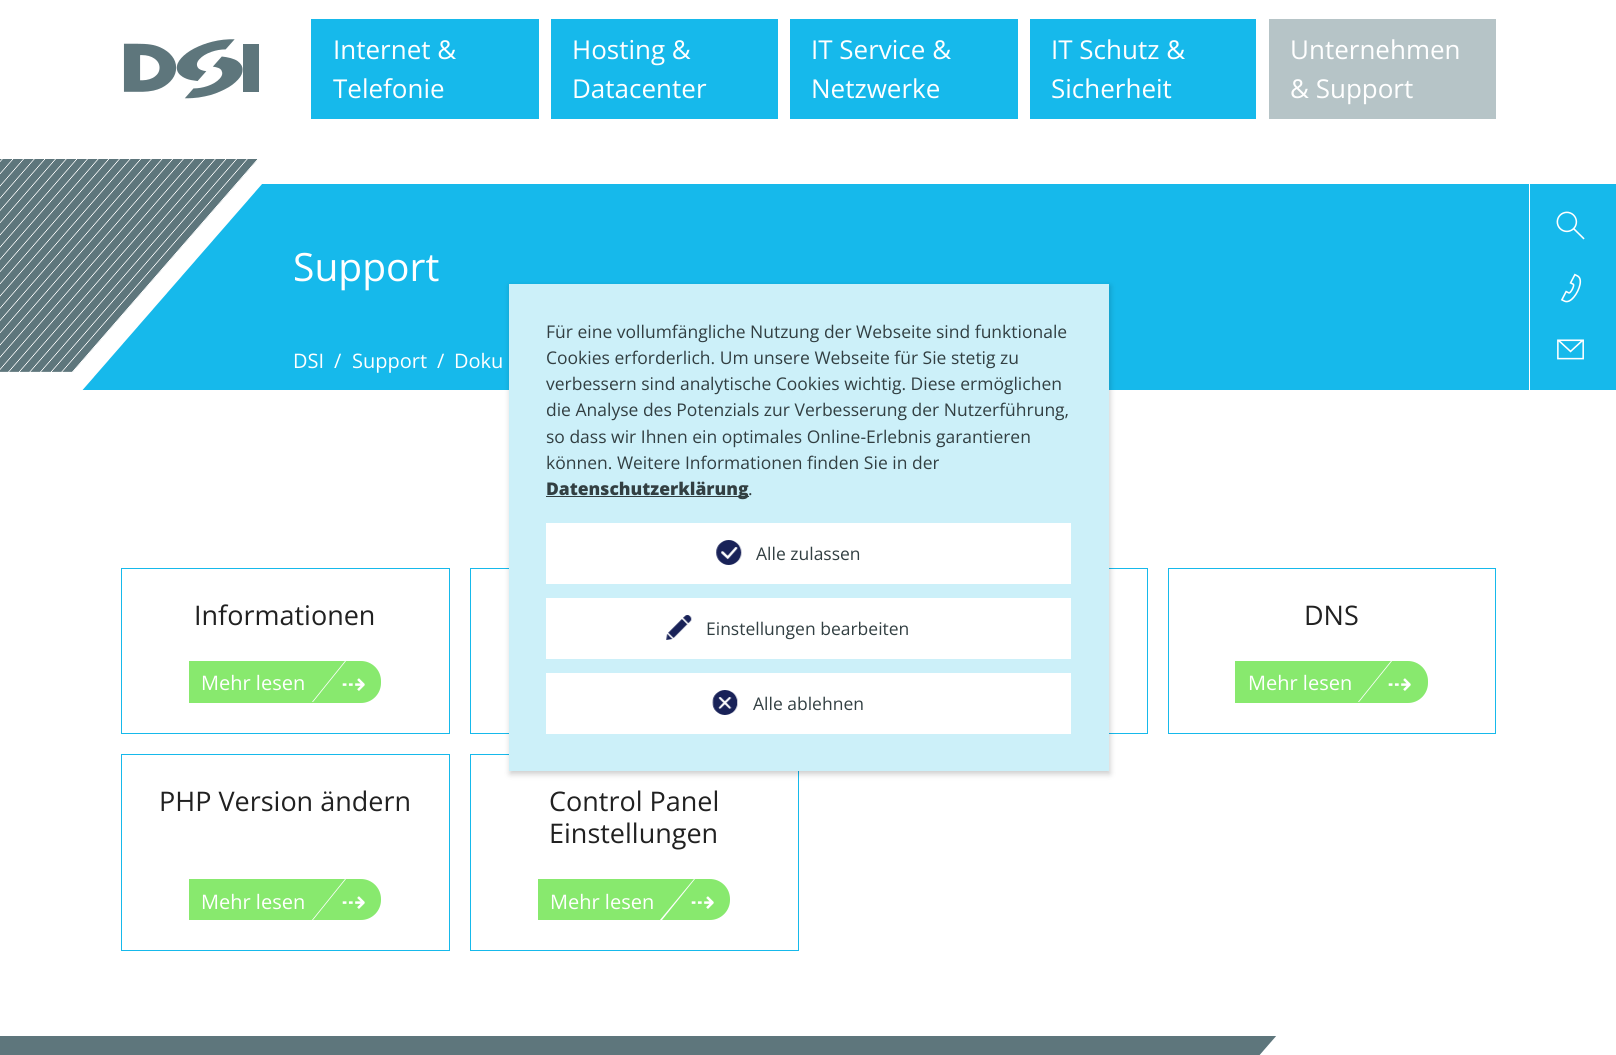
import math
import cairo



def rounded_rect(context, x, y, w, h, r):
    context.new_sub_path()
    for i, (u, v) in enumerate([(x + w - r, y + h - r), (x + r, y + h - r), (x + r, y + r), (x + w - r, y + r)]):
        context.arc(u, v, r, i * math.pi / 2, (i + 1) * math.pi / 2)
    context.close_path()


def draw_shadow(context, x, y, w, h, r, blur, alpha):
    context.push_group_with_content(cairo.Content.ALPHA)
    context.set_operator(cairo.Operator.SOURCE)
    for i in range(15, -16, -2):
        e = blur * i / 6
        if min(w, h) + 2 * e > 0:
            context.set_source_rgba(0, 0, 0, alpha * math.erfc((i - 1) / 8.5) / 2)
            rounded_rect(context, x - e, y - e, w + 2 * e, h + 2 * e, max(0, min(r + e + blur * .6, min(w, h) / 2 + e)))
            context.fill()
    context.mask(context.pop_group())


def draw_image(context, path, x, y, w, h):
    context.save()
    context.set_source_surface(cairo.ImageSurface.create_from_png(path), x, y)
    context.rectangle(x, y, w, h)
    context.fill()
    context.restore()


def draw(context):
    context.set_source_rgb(1, 1, 1)
    context.paint()
    draw_image(context, "images/1.png", 123, 39, 136, 60)
    context.set_source_rgb(22 / 255, 185 / 255, 235 / 255)
    context.rectangle(311, 19, 228, 100)
    context.fill()
    context.rectangle(551, 19, 227, 100)
    context.fill()
    context.rectangle(790, 19, 228, 100)
    context.fill()
    context.rectangle(1030, 19, 226, 100)
    context.fill()
    context.set_source_rgb(182 / 255, 196 / 255, 199 / 255)
    context.rectangle(1269, 19, 227, 100)
    context.fill()
    context.set_source_rgb(22 / 255, 185 / 255, 235 / 255)
    context.rectangle(82, 184, 1534, 206)
    context.fill()
    draw_image(context, "images/2.png", 0, 159, 262, 231)
    context.set_source_rgb(1, 1, 1)
    context.rectangle(1529, 184, 1, 206)
    context.fill()
    draw_image(context, "images/3.png", 1556, 211, 29, 29)
    draw_image(context, "images/4.png", 1560, 273, 22, 30)
    draw_image(context, "images/5.png", 1557, 339, 27, 21)
    context.rectangle(121.5, 568.5, 328, 165)
    context.set_source_rgb(22 / 255, 185 / 255, 235 / 255)
    context.set_line_width(1)
    context.stroke()
    context.set_source_rgb(136 / 255, 233 / 255, 110 / 255)
    context.new_path()
    context.move_to(189, 661)
    context.line_to(361, 661)
    context.curve_to(372, 661, 381, 670, 381, 681)
    context.line_to(381, 683)
    context.curve_to(381, 694, 372, 703, 361, 703)
    context.line_to(189, 703)
    context.close_path()
    context.fill()
    context.set_source_rgb(1, 1, 1)
    context.new_path()
    context.move_to(345, 661)
    context.line_to(346, 661)
    context.line_to(313, 702)
    context.line_to(312, 702)
    context.close_path()
    context.fill()
    context.rectangle(470.5, 568.5, 328, 165)
    context.set_source_rgb(22 / 255, 185 / 255, 235 / 255)
    context.stroke()
    context.rectangle(819.5, 568.5, 328, 165)
    context.stroke()
    context.rectangle(1168.5, 568.5, 327, 165)
    context.stroke()
    context.set_source_rgb(136 / 255, 233 / 255, 110 / 255)
    context.new_path()
    context.move_to(1235, 661)
    context.line_to(1408, 661)
    context.curve_to(1419, 661, 1428, 670, 1428, 681)
    context.line_to(1428, 683)
    context.curve_to(1428, 694, 1419, 703, 1408, 703)
    context.line_to(1235, 703)
    context.close_path()
    context.fill()
    context.set_source_rgb(1, 1, 1)
    context.new_path()
    context.move_to(1391, 661)
    context.line_to(1392, 661)
    context.line_to(1359, 702)
    context.line_to(1358, 702)
    context.close_path()
    context.fill()
    context.rectangle(121.5, 754.5, 328, 196)
    context.set_source_rgb(22 / 255, 185 / 255, 235 / 255)
    context.stroke()
    context.set_source_rgb(136 / 255, 233 / 255, 110 / 255)
    context.new_path()
    context.move_to(189, 879)
    context.line_to(361, 879)
    context.curve_to(372, 879, 381, 888, 381, 899)
    context.line_to(381, 900)
    context.curve_to(381, 911, 372, 920, 361, 920)
    context.line_to(189, 920)
    context.close_path()
    context.fill()
    context.set_source_rgb(1, 1, 1)
    context.new_path()
    context.move_to(345, 879)
    context.line_to(346, 879)
    context.line_to(313, 920)
    context.line_to(312, 920)
    context.close_path()
    context.fill()
    context.rectangle(470.5, 754.5, 328, 196)
    context.set_source_rgb(22 / 255, 185 / 255, 235 / 255)
    context.stroke()
    context.set_source_rgb(136 / 255, 233 / 255, 110 / 255)
    context.new_path()
    context.move_to(538, 879)
    context.line_to(710, 879)
    context.curve_to(721, 879, 730, 888, 730, 899)
    context.line_to(730, 900)
    context.curve_to(730, 911, 721, 920, 710, 920)
    context.line_to(538, 920)
    context.close_path()
    context.fill()
    context.set_source_rgb(1, 1, 1)
    context.new_path()
    context.move_to(694, 879)
    context.line_to(695, 879)
    context.line_to(662, 920)
    context.line_to(660, 920)
    context.close_path()
    context.fill()
    context.set_source_rgb(94 / 255, 118 / 255, 124 / 255)
    context.rectangle(0, 1036, 1277, 19)
    context.fill()
    draw_image(context, "images/6.png", 1259, 1036, 357, 19)
    context.set_source_rgb(0, 0, 0)
    draw_shadow(context, 510, 286, 600, 488, 0, 3, 0.2)
    context.set_source_rgb(204 / 255, 240 / 255, 249 / 255)
    context.rectangle(509, 284, 600, 487)
    context.fill()
    context.set_source_rgb(50 / 255, 63 / 255, 66 / 255)
    context.rectangle(546, 496, 203, 1)
    context.fill()
    context.set_source_rgb(1, 1, 1)
    context.rectangle(546, 523, 525, 61)
    context.fill()
    draw_image(context, "images/7.png", 716, 540, 26, 25)
    context.rectangle(546, 673, 525, 61)
    context.fill()
    draw_image(context, "images/8.png", 712, 690, 26, 25)
    context.rectangle(546, 598, 525, 61)
    context.fill()
    draw_image(context, "images/9.png", 666, 615, 26, 25)
    context.select_font_face("Open Sans")
    context.set_font_size(26)
    context.move_to(333, 59)
    context.show_text("Internet &")
    context.move_to(333, 98)
    context.show_text("Telefonie")
    context.move_to(572, 59)
    context.show_text("Hosting &")
    context.move_to(572, 98)
    context.show_text("Datacenter")
    context.move_to(811, 59)
    context.show_text("IT Service &")
    context.move_to(811, 98)
    context.show_text("Netzwerke")
    context.move_to(1051, 59)
    context.show_text("IT Schutz &")
    context.move_to(1051, 98)
    context.show_text("Sicherheit")
    context.move_to(1290, 59)
    context.show_text("Unternehmen")
    context.move_to(1290, 98)
    context.show_text("& Support")
    context.set_font_size(39)
    context.move_to(293, 281)
    context.show_text("Support")
    context.set_font_size(20)
    context.move_to(293, 368)
    context.show_text("DSI")
    context.move_to(334, 368)
    context.show_text("/")
    context.move_to(352, 368)
    context.show_text("Support")
    context.move_to(437, 368)
    context.show_text("/")
    context.move_to(454, 368)
    context.show_text("Doku")
    context.set_font_size(27)
    context.set_source_rgb(33 / 255, 33 / 255, 33 / 255)
    context.move_to(194, 625)
    context.show_text("Informationen")
    context.set_font_size(20)
    context.set_source_rgb(1, 1, 1)
    context.move_to(201, 690)
    context.show_text("Mehr lesen")
    context.select_font_face("DejaVu Sans")
    context.set_font_size(30)
    context.move_to(341, 694)
    context.show_text("⇢")
    context.select_font_face("Open Sans")
    context.set_font_size(27)
    context.set_source_rgb(33 / 255, 33 / 255, 33 / 255)
    context.move_to(1304, 625)
    context.show_text("DNS")
    context.set_font_size(20)
    context.set_source_rgb(1, 1, 1)
    context.move_to(1248, 690)
    context.show_text("Mehr lesen")
    context.select_font_face("DejaVu Sans")
    context.set_font_size(30)
    context.move_to(1387, 694)
    context.show_text("⇢")
    context.select_font_face("Open Sans")
    context.set_font_size(27)
    context.set_source_rgb(33 / 255, 33 / 255, 33 / 255)
    context.move_to(159, 811)
    context.show_text("PHP Version ändern")
    context.set_font_size(20)
    context.set_source_rgb(1, 1, 1)
    context.move_to(201, 909)
    context.show_text("Mehr lesen")
    context.select_font_face("DejaVu Sans")
    context.set_font_size(30)
    context.move_to(341, 912)
    context.show_text("⇢")
    context.select_font_face("Open Sans")
    context.set_font_size(27)
    context.set_source_rgb(33 / 255, 33 / 255, 33 / 255)
    context.move_to(549, 811)
    context.show_text("Control Panel")
    context.move_to(549, 843)
    context.show_text("Einstellungen")
    context.set_font_size(20)
    context.set_source_rgb(1, 1, 1)
    context.move_to(550, 909)
    context.show_text("Mehr lesen")
    context.select_font_face("DejaVu Sans")
    context.set_font_size(30)
    context.move_to(690, 912)
    context.show_text("⇢")
    context.select_font_face("Open Sans")
    context.set_font_size(17.5)
    context.set_source_rgb(50 / 255, 63 / 255, 66 / 255)
    context.move_to(546, 338)
    context.show_text("Für eine vollumfängliche Nutzung der Webseite sind funktionale")
    context.move_to(546, 364)
    context.show_text("Cookies erforderlich. Um unsere Webseite für Sie stetig zu")
    context.move_to(546, 390)
    context.show_text("verbessern sind analytische Cookies wichtig. Diese ermöglichen")
    context.move_to(546, 416)
    context.show_text("die Analyse des Potenzials zur Verbesserung der Nutzerführung,")
    context.move_to(546, 443)
    context.show_text("so dass wir Ihnen ein optimales Online-Erlebnis garantieren")
    context.move_to(546, 469)
    context.show_text("können. Weitere Informationen finden Sie in der")
    context.select_font_face("Open Sans ExtraBold")
    context.move_to(546, 495)
    context.show_text("Datenschutzerklärung")
    context.select_font_face("Open Sans")
    context.move_to(748, 495)
    context.show_text(".")
    context.move_to(756, 560)
    context.show_text("Alle zulassen")
    context.move_to(753, 710)
    context.show_text("Alle ablehnen")
    context.move_to(706, 635)
    context.show_text("Einstellungen bearbeiten")


surface = cairo.ImageSurface(cairo.Format.RGB24, 1616, 1055)
context = cairo.Context(surface)
options = cairo.FontOptions()
options.set_hint_metrics(cairo.HintMetrics.OFF)
options.set_hint_style(cairo.HintStyle.NONE)
context.set_font_options(options)
context.set_miter_limit(4)
draw(context)
surface.write_to_png("out.png")
